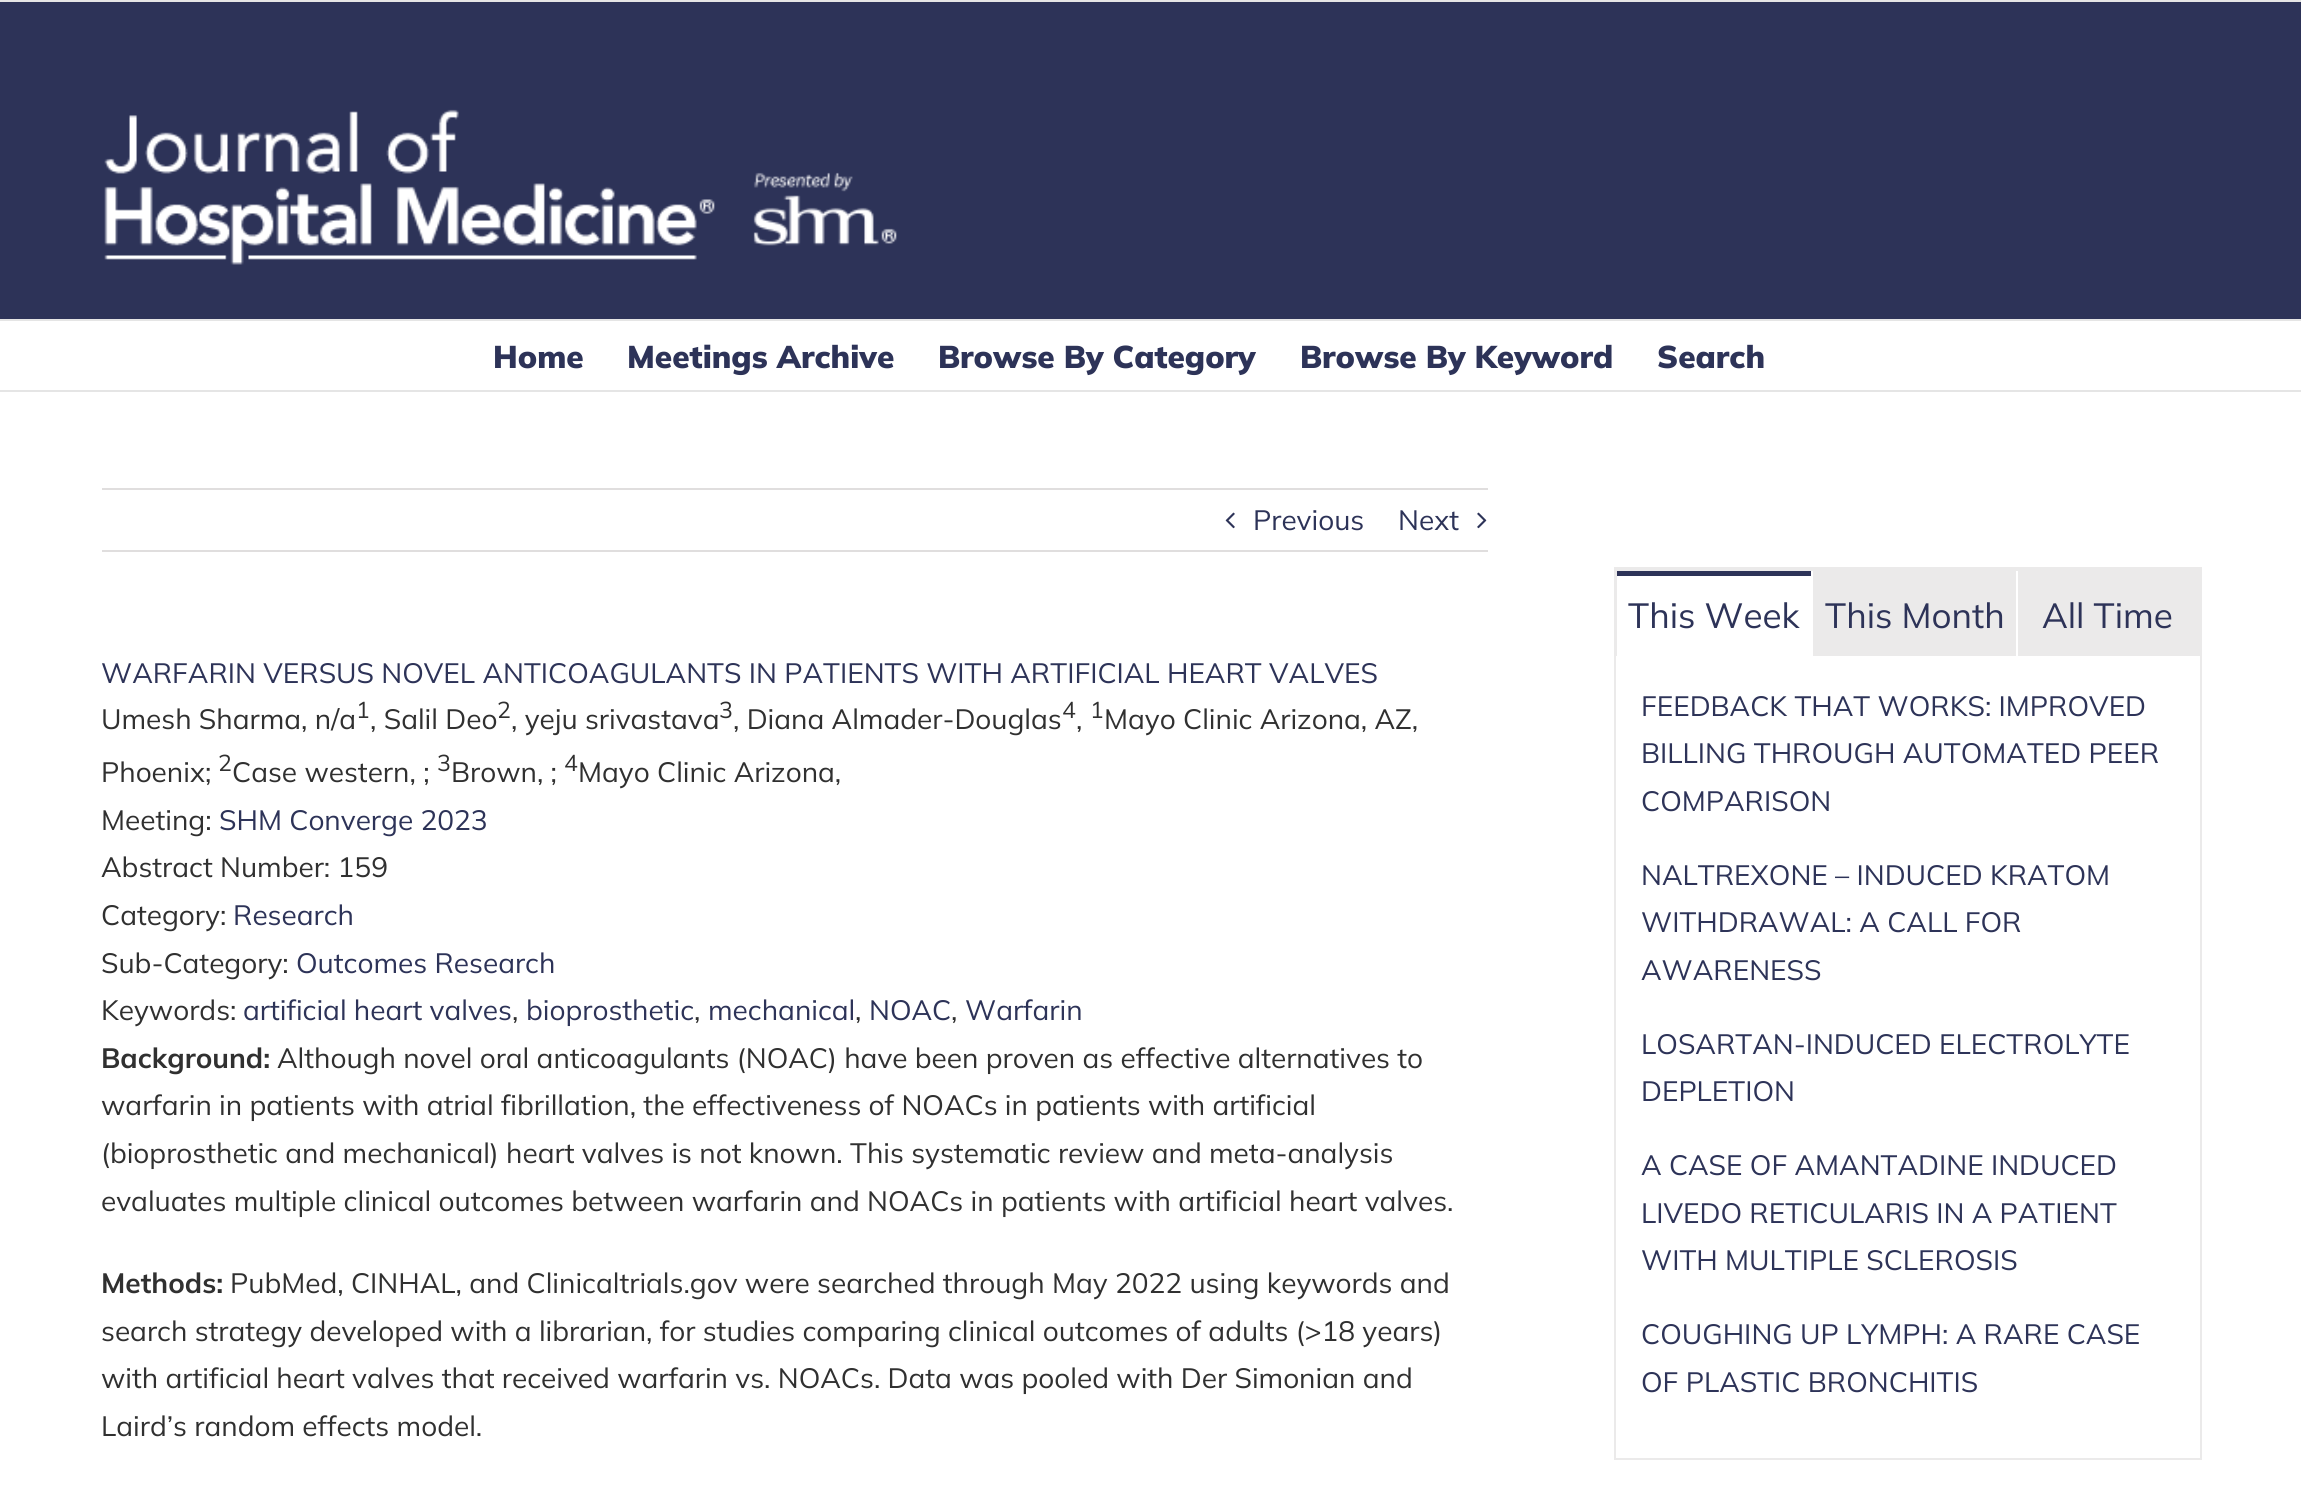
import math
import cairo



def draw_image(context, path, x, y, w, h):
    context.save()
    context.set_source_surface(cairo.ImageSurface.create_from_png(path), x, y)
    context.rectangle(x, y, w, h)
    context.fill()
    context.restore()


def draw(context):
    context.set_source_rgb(1, 1, 1)
    context.paint()
    context.set_source_rgb(229 / 255, 229 / 255, 229 / 255)
    context.rectangle(0, 0, 2301, 2)
    context.fill()
    context.set_source_rgb(45 / 255, 51 / 255, 88 / 255)
    context.rectangle(0, 2, 2301, 317)
    context.fill()
    context.set_source_rgb(229 / 255, 229 / 255, 229 / 255)
    context.rectangle(0, 319, 2301, 2)
    context.fill()
    draw_image(context, "images/1.png", 104, 109, 793, 156)
    context.rectangle(0, 390, 2301, 2)
    context.fill()
    context.set_source_rgb(224 / 255, 222 / 255, 222 / 255)
    context.rectangle(102, 488, 1386, 2)
    context.fill()
    context.rectangle(102, 550, 1386, 2)
    context.fill()
    draw_image(context, "images/2.png", 1225, 512, 10, 17)
    draw_image(context, "images/3.png", 1477, 512, 10, 17)
    context.rectangle(1615, 568, 586, 87)
    context.set_source_rgb(235 / 255, 234 / 255, 234 / 255)
    context.stroke()
    context.set_source_rgb(1, 1, 1)
    context.rectangle(1617, 654, 401, 2)
    context.fill()
    context.set_source_rgb(235 / 255, 234 / 255, 234 / 255)
    context.rectangle(1615, 569, 585, 2)
    context.fill()
    context.rectangle(2198, 569, 2, 87)
    context.fill()
    context.rectangle(1616, 569, 1, 87)
    context.fill()
    context.set_source_rgb(45 / 255, 51 / 255, 88 / 255)
    context.rectangle(1617, 571, 194, 5)
    context.fill()
    context.set_source_rgb(235 / 255, 234 / 255, 234 / 255)
    context.rectangle(1813, 571, 203, 85)
    context.fill()
    context.rectangle(2018, 571, 180, 83)
    context.fill()
    context.rectangle(2200, 656, 2, 804)
    context.fill()
    context.rectangle(1614, 1458, 588, 2)
    context.fill()
    context.rectangle(1614, 656, 2, 804)
    context.fill()
    context.select_font_face("Mulish Black")
    context.set_font_size(31.5)
    context.set_source_rgb(45 / 255, 51 / 255, 88 / 255)
    context.move_to(493, 368)
    context.show_text("Home")
    context.move_to(627, 368)
    context.show_text("Meetings Archive")
    context.move_to(938, 368)
    context.show_text("Browse By Category")
    context.move_to(1300, 368)
    context.show_text("Browse By Keyword")
    context.move_to(1657, 368)
    context.show_text("Search")
    context.select_font_face("Mulish")
    context.set_font_size(28)
    context.move_to(1253, 530)
    context.show_text("Previous")
    context.move_to(1398, 530)
    context.show_text("Next")
    context.move_to(101, 683)
    context.show_text("WARFARIN VERSUS NOVEL ANTICOAGULANTS IN PATIENTS WITH ARTIFICIAL HEART VALVES")
    context.set_source_rgb(48 / 255, 48 / 255, 48 / 255)
    context.move_to(101, 729)
    context.show_text("Umesh Sharma, n/a")
    context.set_font_size(23)
    context.move_to(356, 718)
    context.show_text("1")
    context.set_font_size(28)
    context.move_to(370, 729)
    context.show_text(", Salil Deo")
    context.set_font_size(23)
    context.move_to(497, 718)
    context.show_text("2")
    context.set_font_size(28)
    context.move_to(511, 729)
    context.show_text(", yeju srivastava")
    context.set_font_size(23)
    context.move_to(719, 718)
    context.show_text("3")
    context.set_font_size(28)
    context.move_to(733, 729)
    context.show_text(", Diana Almader-Douglas")
    context.set_font_size(23)
    context.move_to(1062, 718)
    context.show_text("4")
    context.set_font_size(28)
    context.move_to(1076, 729)
    context.show_text(",")
    context.set_font_size(23)
    context.move_to(1090, 718)
    context.show_text("1")
    context.set_font_size(28)
    context.move_to(1104, 729)
    context.show_text("Mayo Clinic Arizona, AZ,")
    context.move_to(101, 782)
    context.show_text("Phoenix;")
    context.set_font_size(23)
    context.move_to(218, 771)
    context.show_text("2")
    context.set_font_size(28)
    context.move_to(232, 782)
    context.show_text("Case western, ;")
    context.set_font_size(23)
    context.move_to(437, 771)
    context.show_text("3")
    context.set_font_size(28)
    context.move_to(451, 782)
    context.show_text("Brown, ;")
    context.set_font_size(23)
    context.move_to(564, 771)
    context.show_text("4")
    context.set_font_size(28)
    context.move_to(578, 782)
    context.show_text("Mayo Clinic Arizona,")
    context.move_to(101, 830)
    context.show_text("Meeting:")
    context.set_source_rgb(45 / 255, 51 / 255, 88 / 255)
    context.move_to(219, 830)
    context.show_text("SHM Converge 2023")
    context.set_source_rgb(48 / 255, 48 / 255, 48 / 255)
    context.move_to(101, 877)
    context.show_text("Abstract Number: 159")
    context.move_to(101, 925)
    context.show_text("Category:")
    context.set_source_rgb(45 / 255, 51 / 255, 88 / 255)
    context.move_to(233, 925)
    context.show_text("Research")
    context.set_source_rgb(48 / 255, 48 / 255, 48 / 255)
    context.move_to(101, 973)
    context.show_text("Sub-Category:")
    context.set_source_rgb(45 / 255, 51 / 255, 88 / 255)
    context.move_to(296, 973)
    context.show_text("Outcomes Research")
    context.set_source_rgb(48 / 255, 48 / 255, 48 / 255)
    context.move_to(101, 1020)
    context.show_text("Keywords:")
    context.set_source_rgb(45 / 255, 51 / 255, 88 / 255)
    context.move_to(243, 1020)
    context.show_text("artificial heart valves")
    context.set_source_rgb(48 / 255, 48 / 255, 48 / 255)
    context.move_to(512, 1020)
    context.show_text(",")
    context.set_source_rgb(45 / 255, 51 / 255, 88 / 255)
    context.move_to(526, 1020)
    context.show_text("bioprosthetic")
    context.set_source_rgb(48 / 255, 48 / 255, 48 / 255)
    context.move_to(694, 1020)
    context.show_text(",")
    context.set_source_rgb(45 / 255, 51 / 255, 88 / 255)
    context.move_to(708, 1020)
    context.show_text("mechanical")
    context.set_source_rgb(48 / 255, 48 / 255, 48 / 255)
    context.move_to(855, 1020)
    context.show_text(",")
    context.set_source_rgb(45 / 255, 51 / 255, 88 / 255)
    context.move_to(869, 1020)
    context.show_text("NOAC")
    context.set_source_rgb(48 / 255, 48 / 255, 48 / 255)
    context.move_to(951, 1020)
    context.show_text(",")
    context.set_source_rgb(45 / 255, 51 / 255, 88 / 255)
    context.move_to(965, 1020)
    context.show_text("Warfarin")
    context.select_font_face("Mulish", cairo.FontSlant.NORMAL, cairo.FontWeight.BOLD)
    context.set_source_rgb(48 / 255, 48 / 255, 48 / 255)
    context.move_to(101, 1068)
    context.show_text("Background:")
    context.select_font_face("Mulish")
    context.move_to(277, 1068)
    context.show_text("Although novel oral anticoagulants (NOAC) have been proven as effective alternatives to")
    context.move_to(101, 1115)
    context.show_text("warfarin in patients with atrial fibrillation, the effectiveness of NOACs in patients with artificial")
    context.move_to(101, 1163)
    context.show_text("(bioprosthetic and mechanical) heart valves is not known. This systematic review and meta-analysis")
    context.move_to(101, 1211)
    context.show_text("evaluates multiple clinical outcomes between warfarin and NOACs in patients with artificial heart valves.")
    context.select_font_face("Mulish", cairo.FontSlant.NORMAL, cairo.FontWeight.BOLD)
    context.move_to(101, 1293)
    context.show_text("Methods:")
    context.select_font_face("Mulish")
    context.move_to(230, 1293)
    context.show_text("PubMed, CINHAL, and Clinicaltrials.gov were searched through May 2022 using keywords and")
    context.move_to(101, 1341)
    context.show_text("search strategy developed with a librarian, for studies comparing clinical outcomes of adults (>18 years)")
    context.move_to(101, 1388)
    context.show_text("with artificial heart valves that received warfarin vs. NOACs. Data was pooled with Der Simonian and")
    context.move_to(101, 1436)
    context.show_text("Laird’s random effects model.")
    context.set_font_size(35)
    context.set_source_rgb(45 / 255, 51 / 255, 88 / 255)
    context.move_to(1628, 628)
    context.show_text("This Week")
    context.move_to(1825, 628)
    context.show_text("This Month")
    context.move_to(2042, 628)
    context.show_text("All Time")
    context.set_font_size(28)
    context.move_to(1641, 716)
    context.show_text("FEEDBACK THAT WORKS: IMPROVED")
    context.move_to(1641, 763)
    context.show_text("BILLING THROUGH AUTOMATED PEER")
    context.move_to(1641, 811)
    context.show_text("COMPARISON")
    context.move_to(1641, 885)
    context.show_text("NALTREXONE – INDUCED KRATOM")
    context.move_to(1641, 932)
    context.show_text("WITHDRAWAL: A CALL FOR")
    context.move_to(1641, 980)
    context.show_text("AWARENESS")
    context.move_to(1641, 1054)
    context.show_text("LOSARTAN-INDUCED ELECTROLYTE")
    context.move_to(1641, 1101)
    context.show_text("DEPLETION")
    context.move_to(1641, 1175)
    context.show_text("A CASE OF AMANTADINE INDUCED")
    context.move_to(1641, 1223)
    context.show_text("LIVEDO RETICULARIS IN A PATIENT")
    context.move_to(1641, 1270)
    context.show_text("WITH MULTIPLE SCLEROSIS")
    context.move_to(1641, 1344)
    context.show_text("COUGHING UP LYMPH: A RARE CASE")
    context.move_to(1641, 1392)
    context.show_text("OF PLASTIC BRONCHITIS")


surface = cairo.ImageSurface(cairo.Format.RGB24, 2301, 1502)
context = cairo.Context(surface)
options = cairo.FontOptions()
options.set_hint_metrics(cairo.HintMetrics.OFF)
options.set_hint_style(cairo.HintStyle.NONE)
context.set_font_options(options)
context.set_miter_limit(4)
draw(context)
surface.write_to_png("out.png")
